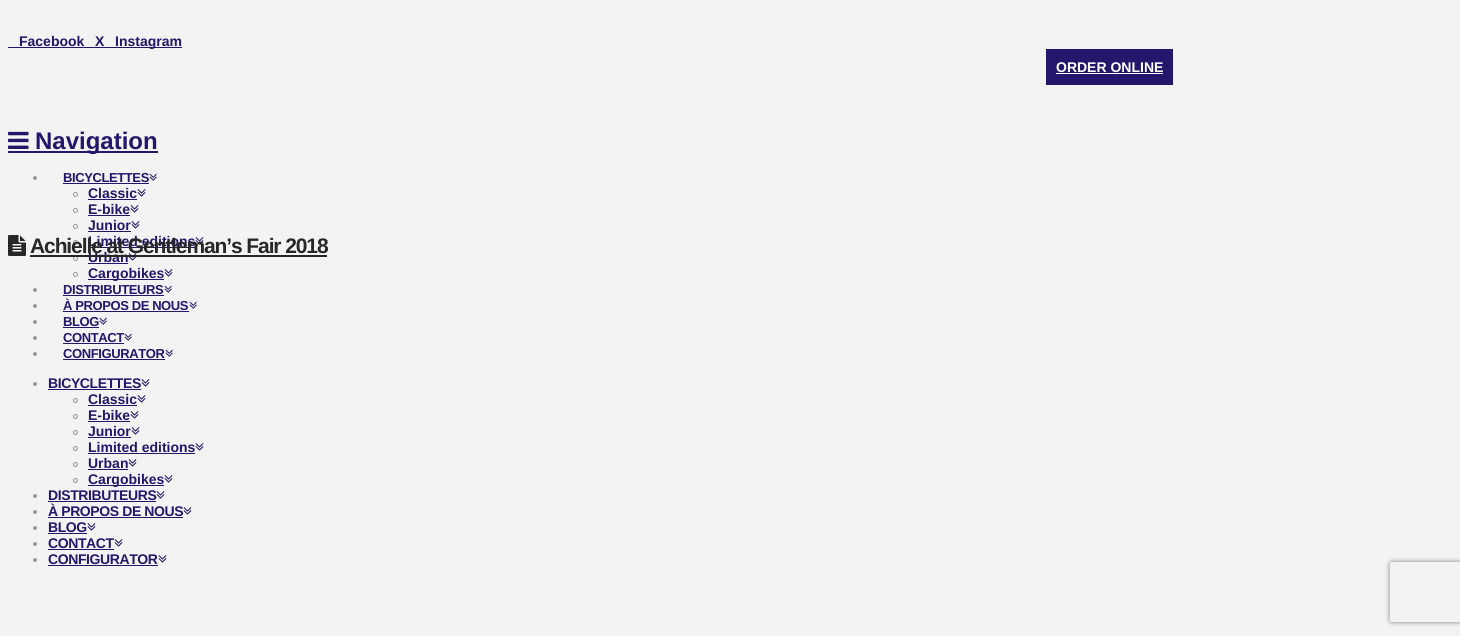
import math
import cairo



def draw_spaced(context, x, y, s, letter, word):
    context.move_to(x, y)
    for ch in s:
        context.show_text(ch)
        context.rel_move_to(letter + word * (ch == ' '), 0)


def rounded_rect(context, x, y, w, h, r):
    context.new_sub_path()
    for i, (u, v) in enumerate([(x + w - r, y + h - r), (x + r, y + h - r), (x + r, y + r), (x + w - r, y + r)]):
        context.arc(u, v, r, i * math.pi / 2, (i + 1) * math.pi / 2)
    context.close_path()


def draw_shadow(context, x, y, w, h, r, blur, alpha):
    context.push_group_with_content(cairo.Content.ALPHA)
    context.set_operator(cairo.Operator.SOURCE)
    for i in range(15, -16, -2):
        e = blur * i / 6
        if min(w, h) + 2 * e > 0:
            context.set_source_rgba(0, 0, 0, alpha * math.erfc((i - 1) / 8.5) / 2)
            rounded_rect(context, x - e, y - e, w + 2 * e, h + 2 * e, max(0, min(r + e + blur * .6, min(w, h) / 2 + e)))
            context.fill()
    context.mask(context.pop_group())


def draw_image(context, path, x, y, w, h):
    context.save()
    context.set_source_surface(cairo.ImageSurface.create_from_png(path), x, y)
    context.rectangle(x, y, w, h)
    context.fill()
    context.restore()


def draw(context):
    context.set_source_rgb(243 / 255, 243 / 255, 243 / 255)
    context.paint()
    context.set_source_rgb(35 / 255, 23 / 255, 107 / 255)
    context.rectangle(8, 47, 174, 1)
    context.fill()
    context.rectangle(1046, 49, 127, 36)
    context.fill()
    context.set_source_rgb(1, 1, 1)
    context.rectangle(1056, 73, 107, 1)
    context.fill()
    context.set_source_rgb(35 / 255, 23 / 255, 107 / 255)
    context.rectangle(8, 151, 150, 2)
    context.fill()
    draw_image(context, "images/1.png", 8, 131, 21, 18)
    context.set_source_rgb(153 / 255, 153 / 255, 153 / 255)
    context.arc(35, 178, 2, 0, 2 * math.pi)
    context.fill()
    context.set_source_rgb(35 / 255, 23 / 255, 107 / 255)
    context.rectangle(63, 183, 86, 1)
    context.fill()
    context.arc(75.5, 194.5, 2, 0, 2 * math.pi)
    context.set_source_rgb(153 / 255, 153 / 255, 153 / 255)
    context.set_line_width(1)
    context.stroke()
    context.set_source_rgb(35 / 255, 23 / 255, 107 / 255)
    context.rectangle(88, 199, 49, 1)
    context.fill()
    draw_image(context, "images/3.png", 137, 189, 9, 8)
    context.arc(75.5, 210.5, 2, 0, 2 * math.pi)
    context.set_source_rgb(153 / 255, 153 / 255, 153 / 255)
    context.stroke()
    context.set_source_rgb(35 / 255, 23 / 255, 107 / 255)
    context.rectangle(88, 215, 42, 1)
    context.fill()
    draw_image(context, "images/3.png", 130, 205, 9, 8)
    context.arc(75.5, 226.5, 2, 0, 2 * math.pi)
    context.set_source_rgb(153 / 255, 153 / 255, 153 / 255)
    context.stroke()
    context.set_source_rgb(35 / 255, 23 / 255, 107 / 255)
    context.rectangle(88, 231, 43, 1)
    context.fill()
    draw_image(context, "images/3.png", 131, 221, 9, 8)
    context.arc(75.5, 242.5, 2, 0, 2 * math.pi)
    context.set_source_rgb(153 / 255, 153 / 255, 153 / 255)
    context.stroke()
    context.set_source_rgb(35 / 255, 23 / 255, 107 / 255)
    context.rectangle(88, 247, 107, 1)
    context.fill()
    draw_image(context, "images/3.png", 195, 237, 9, 8)
    context.arc(75.5, 258.5, 2, 0, 2 * math.pi)
    context.set_source_rgb(153 / 255, 153 / 255, 153 / 255)
    context.stroke()
    context.set_source_rgb(35 / 255, 23 / 255, 107 / 255)
    context.rectangle(88, 263, 40, 1)
    context.fill()
    draw_image(context, "images/3.png", 128, 253, 9, 8)
    context.arc(75.5, 274.5, 2, 0, 2 * math.pi)
    context.set_source_rgb(153 / 255, 153 / 255, 153 / 255)
    context.stroke()
    context.set_source_rgb(35 / 255, 23 / 255, 107 / 255)
    context.rectangle(88, 279, 76, 1)
    context.fill()
    draw_image(context, "images/3.png", 164, 269, 9, 8)
    context.set_source_rgb(153 / 255, 153 / 255, 153 / 255)
    context.arc(35, 290, 2, 0, 2 * math.pi)
    context.fill()
    context.set_source_rgb(35 / 255, 23 / 255, 107 / 255)
    context.rectangle(63, 295, 101, 1)
    context.fill()
    draw_image(context, "images/4.png", 164, 285, 8, 8)
    context.set_source_rgb(153 / 255, 153 / 255, 153 / 255)
    context.arc(35, 306, 2, 0, 2 * math.pi)
    context.fill()
    context.set_source_rgb(35 / 255, 23 / 255, 107 / 255)
    context.rectangle(63, 311, 126, 1)
    context.fill()
    draw_image(context, "images/4.png", 189, 301, 8, 8)
    context.set_source_rgb(153 / 255, 153 / 255, 153 / 255)
    context.arc(35, 322, 2, 0, 2 * math.pi)
    context.fill()
    context.set_source_rgb(35 / 255, 23 / 255, 107 / 255)
    context.rectangle(63, 327, 36, 1)
    context.fill()
    draw_image(context, "images/4.png", 99, 317, 8, 8)
    context.set_source_rgb(153 / 255, 153 / 255, 153 / 255)
    context.arc(35, 338, 2, 0, 2 * math.pi)
    context.fill()
    context.set_source_rgb(35 / 255, 23 / 255, 107 / 255)
    context.rectangle(63, 343, 61, 1)
    context.fill()
    context.set_source_rgb(153 / 255, 153 / 255, 153 / 255)
    context.arc(35, 354, 2, 0, 2 * math.pi)
    context.fill()
    context.set_source_rgb(35 / 255, 23 / 255, 107 / 255)
    context.rectangle(63, 359, 102, 1)
    context.fill()
    draw_image(context, "images/4.png", 165, 349, 8, 8)
    context.set_source_rgb(153 / 255, 153 / 255, 153 / 255)
    context.arc(35, 384, 2, 0, 2 * math.pi)
    context.fill()
    context.set_source_rgb(35 / 255, 23 / 255, 107 / 255)
    context.rectangle(48, 389, 93, 1)
    context.fill()
    draw_image(context, "images/3.png", 141, 379, 9, 8)
    context.arc(75.5, 400.5, 2, 0, 2 * math.pi)
    context.set_source_rgb(153 / 255, 153 / 255, 153 / 255)
    context.stroke()
    context.set_source_rgb(35 / 255, 23 / 255, 107 / 255)
    context.rectangle(88, 405, 49, 1)
    context.fill()
    draw_image(context, "images/3.png", 137, 395, 9, 8)
    context.arc(75.5, 416.5, 2, 0, 2 * math.pi)
    context.set_source_rgb(153 / 255, 153 / 255, 153 / 255)
    context.stroke()
    context.set_source_rgb(35 / 255, 23 / 255, 107 / 255)
    context.rectangle(88, 421, 42, 1)
    context.fill()
    draw_image(context, "images/3.png", 130, 411, 9, 8)
    context.arc(75.5, 432.5, 2, 0, 2 * math.pi)
    context.set_source_rgb(153 / 255, 153 / 255, 153 / 255)
    context.stroke()
    context.set_source_rgb(35 / 255, 23 / 255, 107 / 255)
    context.rectangle(88, 437, 43, 1)
    context.fill()
    draw_image(context, "images/3.png", 131, 427, 9, 8)
    context.arc(75.5, 448.5, 2, 0, 2 * math.pi)
    context.set_source_rgb(153 / 255, 153 / 255, 153 / 255)
    context.stroke()
    context.set_source_rgb(35 / 255, 23 / 255, 107 / 255)
    context.rectangle(88, 453, 107, 1)
    context.fill()
    draw_image(context, "images/3.png", 195, 443, 9, 8)
    context.arc(75.5, 464.5, 2, 0, 2 * math.pi)
    context.set_source_rgb(153 / 255, 153 / 255, 153 / 255)
    context.stroke()
    context.set_source_rgb(35 / 255, 23 / 255, 107 / 255)
    context.rectangle(88, 469, 40, 1)
    context.fill()
    draw_image(context, "images/3.png", 128, 459, 9, 8)
    context.arc(75.5, 480.5, 2, 0, 2 * math.pi)
    context.set_source_rgb(153 / 255, 153 / 255, 153 / 255)
    context.stroke()
    context.set_source_rgb(35 / 255, 23 / 255, 107 / 255)
    context.rectangle(88, 485, 76, 1)
    context.fill()
    draw_image(context, "images/3.png", 164, 475, 9, 8)
    context.set_source_rgb(153 / 255, 153 / 255, 153 / 255)
    context.arc(35, 496, 2, 0, 2 * math.pi)
    context.fill()
    context.set_source_rgb(35 / 255, 23 / 255, 107 / 255)
    context.rectangle(48, 501, 108, 1)
    context.fill()
    context.set_source_rgb(153 / 255, 153 / 255, 153 / 255)
    context.arc(35, 512, 2, 0, 2 * math.pi)
    context.fill()
    context.set_source_rgb(35 / 255, 23 / 255, 107 / 255)
    context.rectangle(48, 517, 135, 1)
    context.fill()
    context.set_source_rgb(153 / 255, 153 / 255, 153 / 255)
    context.arc(35, 528, 2, 0, 2 * math.pi)
    context.fill()
    context.set_source_rgb(35 / 255, 23 / 255, 107 / 255)
    context.rectangle(48, 533, 39, 1)
    context.fill()
    draw_image(context, "images/3.png", 87, 523, 9, 8)
    context.set_source_rgb(153 / 255, 153 / 255, 153 / 255)
    context.arc(35, 544, 2, 0, 2 * math.pi)
    context.fill()
    context.set_source_rgb(35 / 255, 23 / 255, 107 / 255)
    context.rectangle(48, 549, 66, 1)
    context.fill()
    draw_image(context, "images/3.png", 114, 539, 9, 8)
    context.set_source_rgb(153 / 255, 153 / 255, 153 / 255)
    context.arc(35, 560, 2, 0, 2 * math.pi)
    context.fill()
    context.set_source_rgb(35 / 255, 23 / 255, 107 / 255)
    context.rectangle(48, 565, 110, 1)
    context.fill()
    draw_image(context, "images/3.png", 158, 555, 9, 8)
    draw_image(context, "images/8.png", 8, 235, 18, 21)
    context.save()
    context.set_fill_rule(cairo.FillRule.EVEN_ODD)
    context.new_path()
    context.move_to(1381, 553)
    context.line_to(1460, 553)
    context.line_to(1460, 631)
    context.line_to(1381, 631)
    context.close_path()
    context.move_to(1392, 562)
    context.line_to(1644, 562)
    context.curve_to(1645, 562, 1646, 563, 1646, 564)
    context.line_to(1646, 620)
    context.curve_to(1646, 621, 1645, 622, 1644, 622)
    context.line_to(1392, 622)
    context.curve_to(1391, 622, 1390, 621, 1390, 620)
    context.line_to(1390, 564)
    context.curve_to(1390, 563, 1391, 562, 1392, 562)
    context.close_path()
    context.clip()
    context.set_source_rgb(128 / 255, 128 / 255, 128 / 255)
    draw_shadow(context, 1390, 562, 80, 60, 2, 2.5, 1)
    context.restore()
    context.select_font_face("Liberation Sans", cairo.FontSlant.NORMAL, cairo.FontWeight.BOLD)
    context.set_font_size(14)
    context.move_to(19, 46)
    context.show_text("Facebook")
    context.move_to(95, 46)
    context.show_text("X")
    context.move_to(115, 46)
    context.show_text("Instagram")
    context.set_source_rgb(1, 1, 1)
    context.move_to(1056, 72)
    context.show_text("ORDER ONLINE")
    context.set_font_size(24)
    context.set_source_rgb(35 / 255, 23 / 255, 107 / 255)
    context.move_to(35, 149)
    context.show_text("Navigation")
    context.set_font_size(13)
    draw_spaced(context, 63, 182, "BICYCLETTES", -0.4, 0)
    draw_image(context, "images/2.png", 149, 173, 8, 8)
    context.set_font_size(14)
    context.move_to(88, 198)
    context.show_text("Classic")
    context.move_to(88, 214)
    context.show_text("E-bike")
    context.move_to(88, 230)
    context.show_text("Junior")
    context.move_to(88, 246)
    context.show_text("Limited editions")
    context.move_to(88, 262)
    context.show_text("Urban")
    context.move_to(88, 278)
    context.show_text("Cargobikes")
    context.set_font_size(13)
    draw_spaced(context, 63, 294, "DISTRIBUTEURS", -0.4, 0)
    draw_spaced(context, 63, 310, "À PROPOS DE NOUS", -0.4, 0)
    draw_spaced(context, 63, 326, "BLOG", -0.4, 0)
    draw_spaced(context, 63, 342, "CONTACT", -0.4, 0)
    draw_image(context, "images/5.png", 124, 333, 8, 8)
    draw_spaced(context, 63, 358, "CONFIGURATOR", -0.4, 0)
    context.set_font_size(14)
    draw_spaced(context, 48, 388, "BICYCLETTES", -0.4, 0)
    context.move_to(88, 404)
    context.show_text("Classic")
    context.move_to(88, 420)
    context.show_text("E-bike")
    context.move_to(88, 436)
    context.show_text("Junior")
    context.move_to(88, 452)
    context.show_text("Limited editions")
    context.move_to(88, 468)
    context.show_text("Urban")
    context.move_to(88, 484)
    context.show_text("Cargobikes")
    draw_spaced(context, 48, 500, "DISTRIBUTEURS", -0.4, 0)
    draw_image(context, "images/6.png", 156, 491, 9, 8)
    draw_spaced(context, 48, 516, "À PROPOS DE NOUS", -0.4, 0)
    draw_image(context, "images/7.png", 183, 507, 9, 8)
    draw_spaced(context, 48, 532, "BLOG", -0.4, 0)
    draw_spaced(context, 48, 548, "CONTACT", -0.4, 0)
    draw_spaced(context, 48, 564, "CONFIGURATOR", -0.4, 0)
    context.set_font_size(21)
    context.set_source_rgb(39 / 255, 39 / 255, 39 / 255)
    draw_spaced(context, 30, 253, "Achielle at Gentleman’s Fair 2018", -1.1, 0)
    context.rectangle(30, 255, 297, 2)
    context.fill()


surface = cairo.ImageSurface(cairo.Format.RGB24, 1460, 636)
context = cairo.Context(surface)
options = cairo.FontOptions()
options.set_hint_metrics(cairo.HintMetrics.OFF)
options.set_hint_style(cairo.HintStyle.NONE)
context.set_font_options(options)
context.set_miter_limit(4)
draw(context)
surface.write_to_png("out.png")
